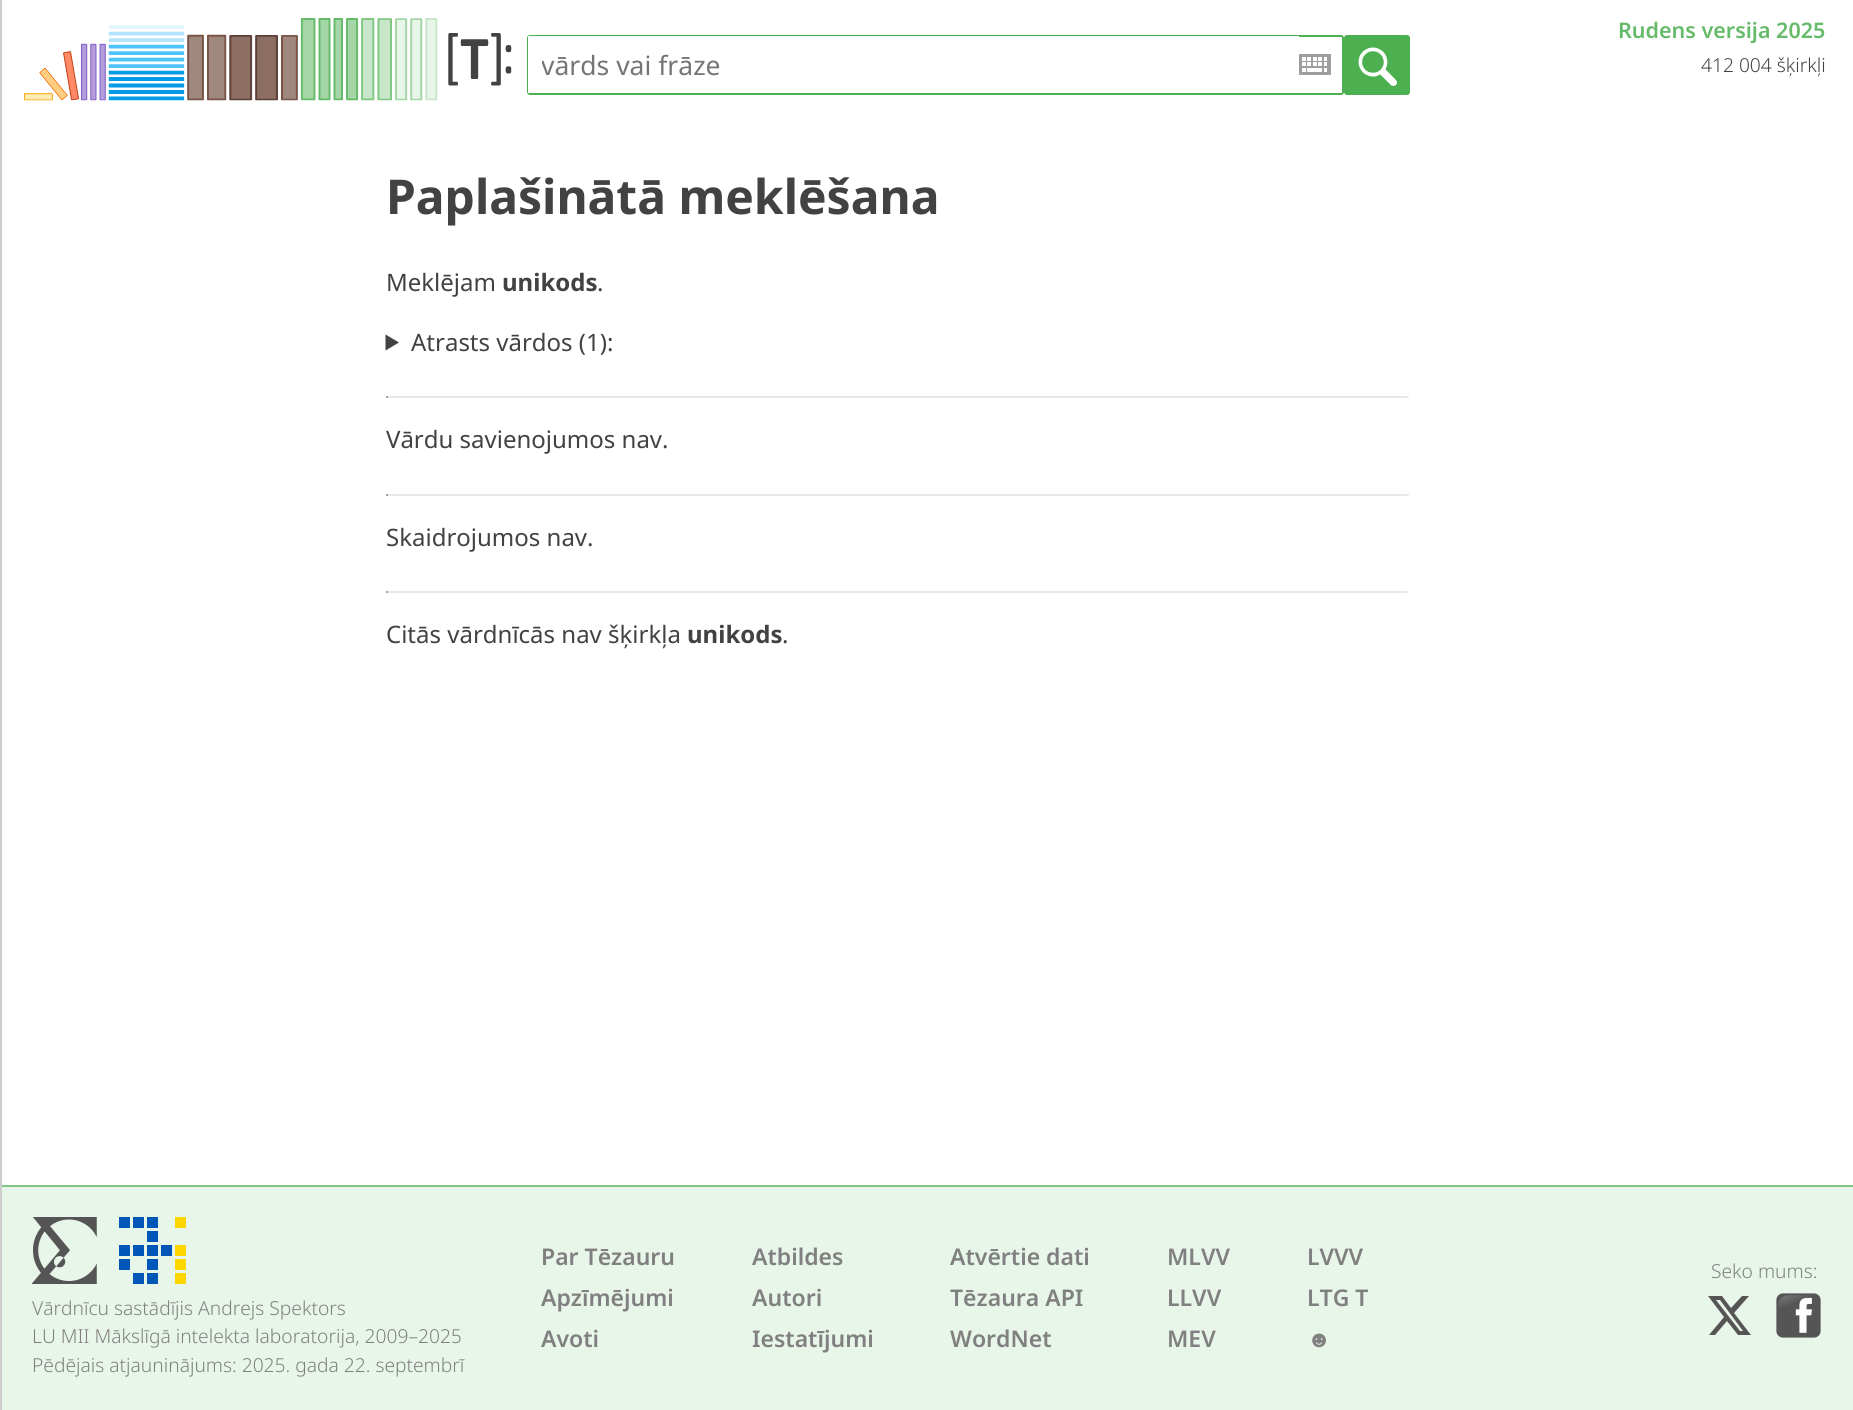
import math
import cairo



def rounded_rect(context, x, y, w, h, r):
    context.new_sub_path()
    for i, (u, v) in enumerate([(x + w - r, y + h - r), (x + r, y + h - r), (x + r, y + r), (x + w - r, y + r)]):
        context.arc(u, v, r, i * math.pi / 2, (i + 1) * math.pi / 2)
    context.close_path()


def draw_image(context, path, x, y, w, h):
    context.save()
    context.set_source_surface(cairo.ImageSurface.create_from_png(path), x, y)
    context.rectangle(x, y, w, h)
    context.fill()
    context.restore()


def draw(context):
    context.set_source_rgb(1, 1, 1)
    context.paint()
    context.set_source_rgb(204 / 255, 204 / 255, 204 / 255)
    context.rectangle(0, 0, 2, 1410)
    context.fill()
    draw_image(context, "images/1.png", 24, 18, 488, 83)
    rounded_rect(context, 528, 36, 815, 58, 2)
    context.set_source_rgb(76 / 255, 175 / 255, 80 / 255)
    context.stroke()
    context.set_source_rgb(1, 1, 1)
    context.rectangle(528, 36, 771, 57)
    context.fill()
    draw_image(context, "images/2.png", 1299, 54, 32, 21)
    context.set_source_rgb(76 / 255, 175 / 255, 80 / 255)
    rounded_rect(context, 1344, 35, 66, 60, 3)
    context.fill()
    draw_image(context, "images/3.png", 1358, 47, 39, 39)
    context.set_source_rgb(66 / 255, 66 / 255, 66 / 255)
    context.new_path()
    context.move_to(385.5, 334.5)
    context.line_to(399, 342.5)
    context.line_to(385.5, 350.5)
    context.close_path()
    context.fill()
    context.set_source_rgb(232 / 255, 232 / 255, 232 / 255)
    context.rectangle(386, 396, 1023, 2)
    context.fill()
    context.set_source_rgb(238 / 255, 238 / 255, 238 / 255)
    context.rectangle(1407, 396, 2, 2)
    context.fill()
    context.set_source_rgb(159 / 255, 159 / 255, 159 / 255)
    context.rectangle(386, 396, 2, 2)
    context.fill()
    context.set_source_rgb(232 / 255, 232 / 255, 232 / 255)
    context.rectangle(386, 494, 1023, 2)
    context.fill()
    context.set_source_rgb(238 / 255, 238 / 255, 238 / 255)
    context.rectangle(1407, 494, 2, 2)
    context.fill()
    context.set_source_rgb(159 / 255, 159 / 255, 159 / 255)
    context.rectangle(386, 494, 2, 2)
    context.fill()
    context.set_source_rgb(232 / 255, 232 / 255, 232 / 255)
    context.rectangle(386, 591, 1023, 2)
    context.fill()
    context.set_source_rgb(238 / 255, 238 / 255, 238 / 255)
    context.rectangle(1407, 591, 2, 2)
    context.fill()
    context.set_source_rgb(159 / 255, 159 / 255, 159 / 255)
    context.rectangle(386, 591, 2, 2)
    context.fill()
    context.set_source_rgb(232 / 255, 245 / 255, 233 / 255)
    context.rectangle(2, 1187, 1851, 223)
    context.fill()
    context.set_source_rgb(129 / 255, 199 / 255, 132 / 255)
    context.rectangle(2, 1185, 1851, 2)
    context.fill()
    context.set_source_rgb(85 / 255, 85 / 255, 85 / 255)
    context.set_fill_rule(cairo.FillRule.EVEN_ODD)
    context.new_path()
    context.move_to(1742, 1296)
    context.line_to(1749, 1296)
    context.line_to(1734, 1313)
    context.line_to(1751, 1335)
    context.line_to(1738, 1335)
    context.line_to(1727, 1321)
    context.line_to(1715, 1335)
    context.line_to(1709, 1335)
    context.line_to(1724, 1317)
    context.line_to(1708, 1296)
    context.line_to(1722, 1296)
    context.line_to(1731, 1308)
    context.close_path()
    context.move_to(1740, 1331)
    context.line_to(1743, 1331)
    context.line_to(1720, 1300)
    context.line_to(1716, 1300)
    context.close_path()
    context.fill()
    draw_image(context, "images/4.png", 1776, 1293, 45, 45)
    draw_image(context, "images/5.png", 32, 1217, 65, 67)
    draw_image(context, "images/6.png", 119, 1217, 67, 67)
    context.save()
    context.set_fill_rule(cairo.FillRule.WINDING)
    context.rectangle(542, 47, 720, 36)
    context.clip()
    context.select_font_face("Noto Sans")
    context.set_font_size(26.5)
    context.set_source_rgb(117 / 255, 117 / 255, 117 / 255)
    context.move_to(541, 75)
    context.show_text("vārds vai frāze")
    context.restore()
    context.select_font_face("Noto Sans SemiBold")
    context.set_font_size(21.5)
    context.set_source_rgb(102 / 255, 187 / 255, 106 / 255)
    context.move_to(1618, 38)
    context.show_text("Rudens versija 2025")
    context.select_font_face("Noto Sans Light")
    context.set_font_size(19.2)
    context.set_source_rgb(66 / 255, 66 / 255, 66 / 255)
    context.move_to(1701, 72)
    context.show_text("412 004 šķirkļi")
    context.select_font_face("Noto Sans", cairo.FontSlant.NORMAL, cairo.FontWeight.BOLD)
    context.set_font_size(48)
    context.move_to(386, 214)
    context.show_text("Paplašinātā meklēšana")
    context.select_font_face("Noto Sans")
    context.set_font_size(24)
    context.move_to(386, 291)
    context.show_text("Meklējam")
    context.select_font_face("Noto Sans", cairo.FontSlant.NORMAL, cairo.FontWeight.BOLD)
    context.move_to(502, 291)
    context.show_text("unikods")
    context.select_font_face("Noto Sans")
    context.move_to(597, 291)
    context.show_text(".")
    context.move_to(411, 351)
    context.show_text("Atrasts vārdos (1):")
    context.move_to(386, 448)
    context.show_text("Vārdu savienojumos nav.")
    context.move_to(386, 546)
    context.show_text("Skaidrojumos nav.")
    context.move_to(386, 643)
    context.show_text("Citās vārdnīcās nav šķirkļa")
    context.select_font_face("Noto Sans", cairo.FontSlant.NORMAL, cairo.FontWeight.BOLD)
    context.move_to(687, 643)
    context.show_text("unikods")
    context.select_font_face("Noto Sans")
    context.move_to(782, 643)
    context.show_text(".")
    context.select_font_face("Noto Sans SemiBold")
    context.set_font_size(23)
    context.set_source_rgb(128 / 255, 128 / 255, 128 / 255)
    context.move_to(541, 1265)
    context.show_text("Par Tēzauru")
    context.move_to(541, 1306)
    context.show_text("Apzīmējumi")
    context.move_to(541, 1347)
    context.show_text("Avoti")
    context.move_to(752, 1265)
    context.show_text("Atbildes")
    context.move_to(752, 1306)
    context.show_text("Autori")
    context.move_to(752, 1347)
    context.show_text("Iestatījumi")
    context.move_to(950, 1265)
    context.show_text("Atvērtie dati")
    context.move_to(950, 1306)
    context.show_text("Tēzaura API")
    context.move_to(950, 1347)
    context.show_text("WordNet")
    context.move_to(1167, 1265)
    context.show_text("MLVV")
    context.move_to(1167, 1306)
    context.show_text("LLVV")
    context.move_to(1167, 1347)
    context.show_text("MEV")
    context.move_to(1307, 1265)
    context.show_text("LVVV")
    context.move_to(1307, 1306)
    context.show_text("LTG T")
    context.select_font_face("Liberation Sans", cairo.FontSlant.NORMAL, cairo.FontWeight.BOLD)
    context.move_to(1307, 1347)
    context.show_text("☻")
    context.select_font_face("Noto Sans Light")
    context.set_font_size(19.2)
    context.move_to(1711, 1278)
    context.show_text("Seko mums:")
    context.move_to(32, 1315)
    context.show_text("Vārdnīcu sastādījis Andrejs Spektors")
    context.move_to(32, 1343)
    context.show_text("LU MII Mākslīgā intelekta laboratorija, 2009–2025")
    context.move_to(32, 1372)
    context.show_text("Pēdējais atjauninājums: 2025. gada 22. septembrī")


surface = cairo.ImageSurface(cairo.Format.RGB24, 1853, 1410)
context = cairo.Context(surface)
options = cairo.FontOptions()
options.set_hint_metrics(cairo.HintMetrics.OFF)
options.set_hint_style(cairo.HintStyle.NONE)
context.set_font_options(options)
context.set_miter_limit(4)
draw(context)
surface.write_to_png("out.png")
